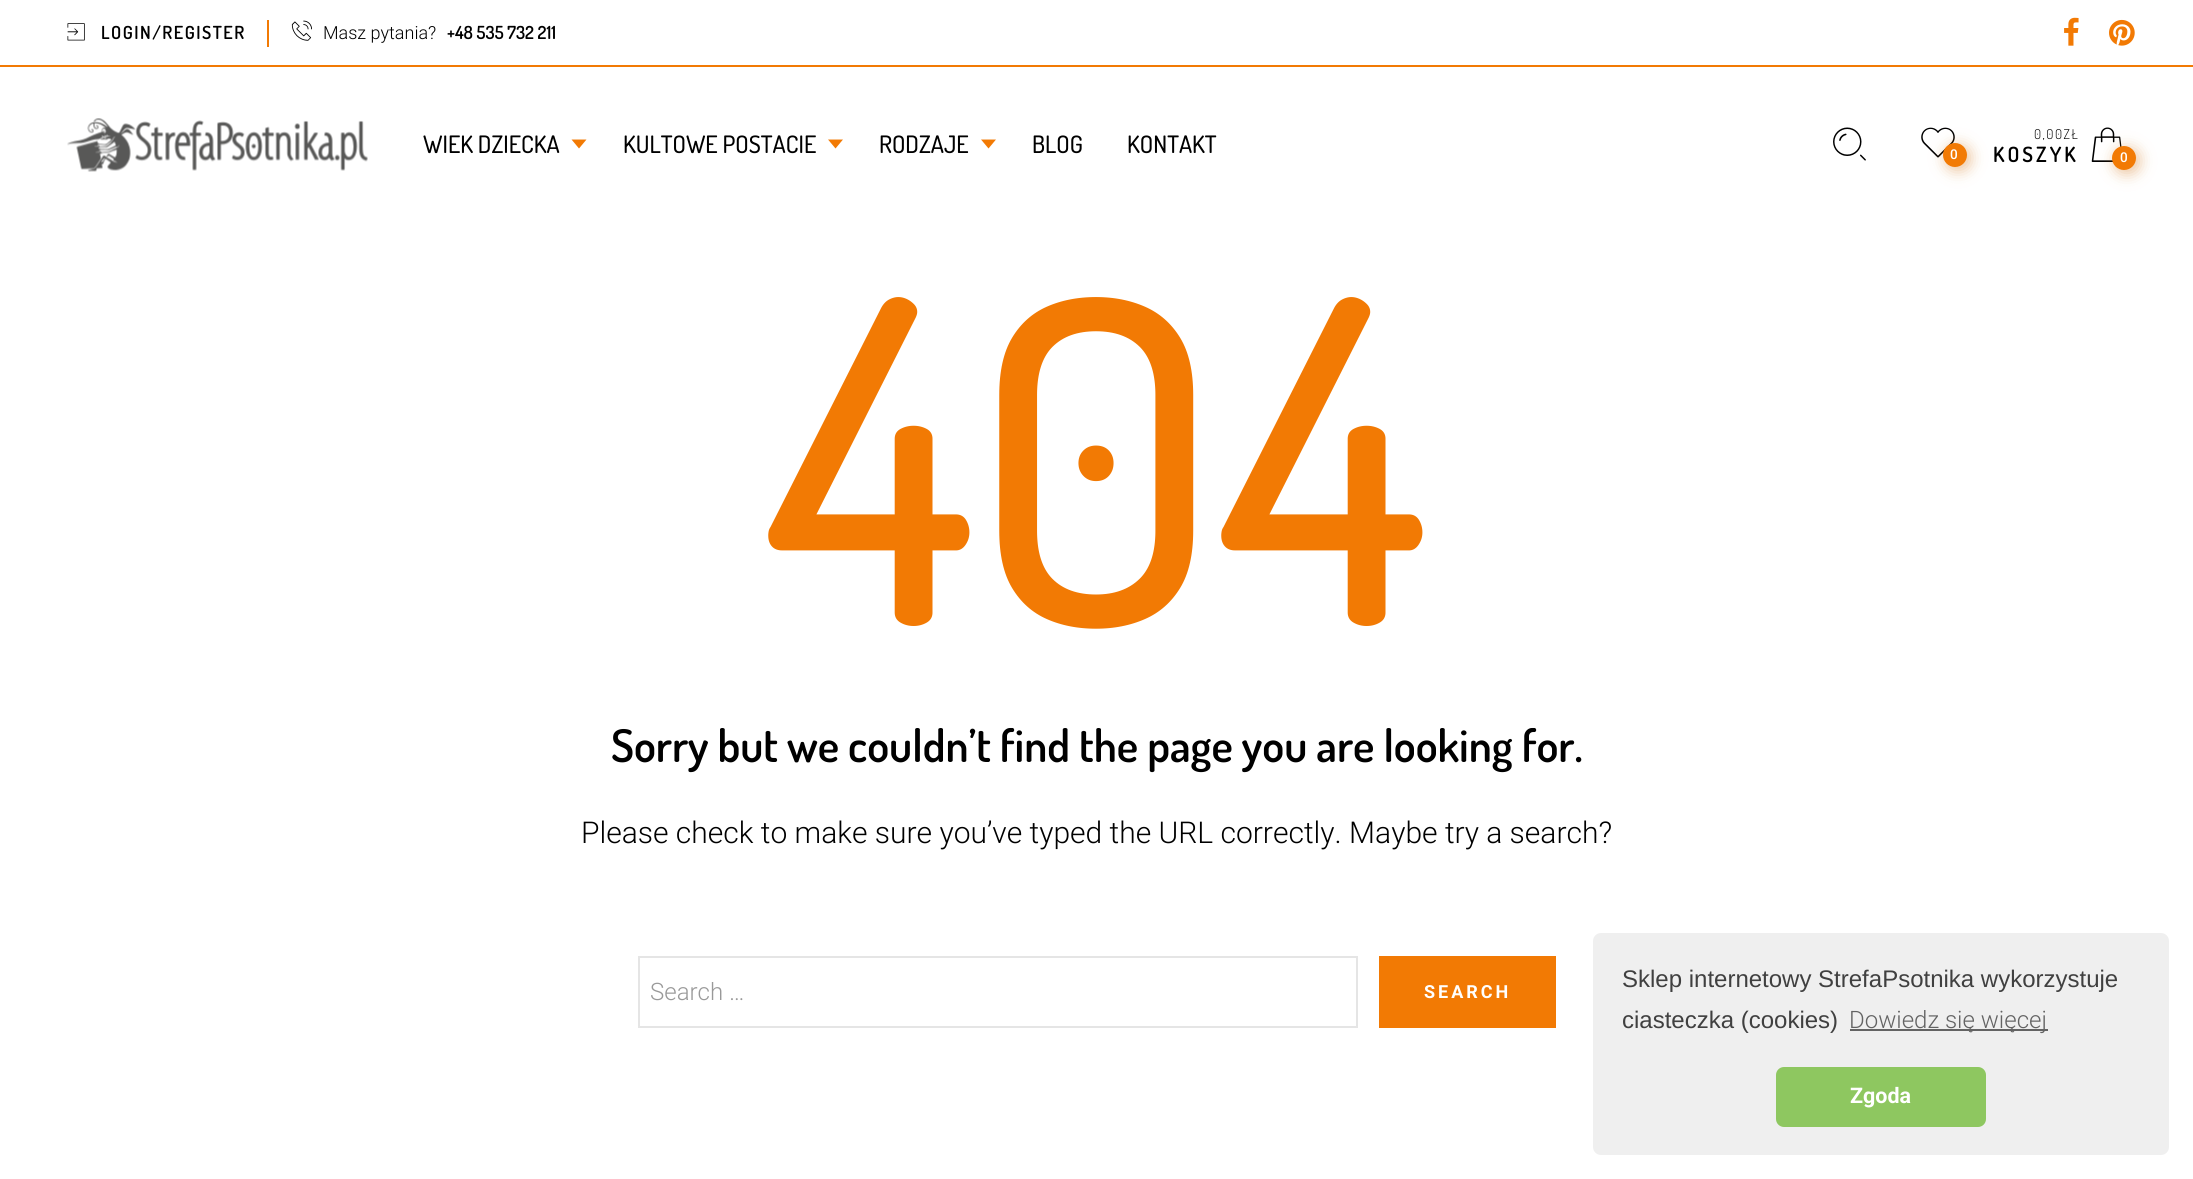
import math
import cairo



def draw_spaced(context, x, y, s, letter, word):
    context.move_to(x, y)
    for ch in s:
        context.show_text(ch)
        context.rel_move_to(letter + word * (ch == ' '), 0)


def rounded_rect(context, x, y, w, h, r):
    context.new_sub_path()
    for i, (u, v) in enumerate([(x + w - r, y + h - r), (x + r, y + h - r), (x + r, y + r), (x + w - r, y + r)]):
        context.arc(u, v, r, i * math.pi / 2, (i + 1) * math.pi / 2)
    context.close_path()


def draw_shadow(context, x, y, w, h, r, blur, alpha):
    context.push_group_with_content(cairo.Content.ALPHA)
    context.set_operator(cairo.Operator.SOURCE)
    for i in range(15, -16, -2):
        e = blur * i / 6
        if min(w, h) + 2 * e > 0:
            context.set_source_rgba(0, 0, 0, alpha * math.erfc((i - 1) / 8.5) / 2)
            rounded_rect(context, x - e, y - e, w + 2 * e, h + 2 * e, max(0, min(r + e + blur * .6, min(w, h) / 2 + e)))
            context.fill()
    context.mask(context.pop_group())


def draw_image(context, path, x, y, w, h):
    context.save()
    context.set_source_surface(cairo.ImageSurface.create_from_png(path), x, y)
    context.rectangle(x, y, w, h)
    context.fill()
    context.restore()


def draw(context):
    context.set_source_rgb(1, 1, 1)
    context.paint()
    context.set_source_rgb(242 / 255, 122 / 255, 4 / 255)
    context.rectangle(0, 65, 2193, 2)
    context.fill()
    draw_image(context, "images/1.png", 67, 23, 18, 18)
    context.rectangle(267, 20, 2, 27)
    context.fill()
    draw_image(context, "images/2.png", 291, 20, 21, 21)
    draw_image(context, "images/3.png", 2064, 17, 15, 29)
    draw_image(context, "images/4.png", 2109, 19, 26, 27)
    draw_image(context, "images/5.png", 67, 118, 301, 54)
    context.new_path()
    context.move_to(586.5, 139.5)
    context.line_to(579, 148.5)
    context.line_to(571.5, 139.5)
    context.close_path()
    context.fill()
    context.new_path()
    context.move_to(843, 139.5)
    context.line_to(835.5, 148.5)
    context.line_to(828, 139.5)
    context.close_path()
    context.fill()
    context.new_path()
    context.move_to(996, 139.5)
    context.line_to(988.5, 148.5)
    context.line_to(981, 139.5)
    context.close_path()
    context.fill()
    draw_image(context, "images/6.png", 1833, 127, 33, 34)
    draw_image(context, "images/7.png", 1921, 127, 34, 31)
    context.set_source_rgb(206 / 255, 104 / 255, 3 / 255)
    draw_shadow(context, 1946, 146, 24, 24, 12, 7.5, 0.4)
    context.set_source_rgb(242 / 255, 122 / 255, 4 / 255)
    context.arc(1955, 155, 12, 0, 2 * math.pi)
    context.fill()
    draw_image(context, "images/8.png", 2091, 127, 31, 35)
    context.set_source_rgb(206 / 255, 104 / 255, 3 / 255)
    draw_shadow(context, 2115, 149, 24, 24, 12, 7.5, 0.4)
    context.set_source_rgb(242 / 255, 122 / 255, 4 / 255)
    context.arc(2124, 158, 12, 0, 2 * math.pi)
    context.fill()
    context.rectangle(639, 957, 718, 70)
    context.set_source_rgb(229 / 255, 229 / 255, 229 / 255)
    context.stroke()
    context.set_source_rgb(242 / 255, 122 / 255, 4 / 255)
    context.rectangle(1379, 956, 177, 72)
    context.fill()
    context.set_source_rgb(239 / 255, 239 / 255, 239 / 255)
    rounded_rect(context, 1593, 933, 576, 222, 8)
    context.fill()
    context.set_source_rgb(99 / 255, 99 / 255, 99 / 255)
    context.rectangle(1850, 1029, 198, 2)
    context.fill()
    context.set_source_rgb(142 / 255, 199 / 255, 96 / 255)
    rounded_rect(context, 1776, 1067, 210, 60, 8)
    context.fill()
    context.select_font_face("Dosis SemiBold")
    context.set_font_size(18)
    context.set_source_rgb(0, 0, 0)
    draw_spaced(context, 101, 39, "LOGIN/REGISTER", 1.5, 0)
    context.select_font_face("Roboto Light")
    context.move_to(323, 39)
    context.show_text("Masz pytania?")
    context.select_font_face("Dosis SemiBold")
    context.move_to(447, 39)
    context.show_text("+48 535 732 211")
    context.select_font_face("Dosis Medium")
    context.set_font_size(24)
    context.move_to(423, 153)
    context.show_text("WIEK DZIECKA")
    context.move_to(623, 153)
    context.show_text("KULTOWE POSTACIE")
    context.move_to(879, 153)
    context.show_text("RODZAJE")
    context.move_to(1032, 153)
    context.show_text("BLOG")
    context.move_to(1127, 153)
    context.show_text("KONTAKT")
    context.select_font_face("Roboto Medium")
    context.set_font_size(13.5)
    context.set_source_rgb(1, 1, 1)
    context.move_to(1950, 159)
    context.show_text("0")
    context.select_font_face("Dosis Light")
    context.set_source_rgb(0, 0, 0)
    draw_spaced(context, 2034, 139, "0,00ZŁ", 1.5, 0)
    context.select_font_face("Dosis SemiBold")
    context.set_font_size(21)
    draw_spaced(context, 1993, 162, "KOSZYK", 3, 0)
    context.select_font_face("Roboto Medium")
    context.set_font_size(13.5)
    context.set_source_rgb(1, 1, 1)
    context.move_to(2120, 162)
    context.show_text("0")
    context.select_font_face("Dosis Medium")
    context.set_font_size(450)
    context.set_source_rgb(242 / 255, 122 / 255, 4 / 255)
    draw_spaced(context, 766, 626, "404", 1.5, 0)
    context.select_font_face("Dosis SemiBold")
    context.set_font_size(45)
    context.set_source_rgb(0, 0, 0)
    context.move_to(611, 762)
    context.show_text("Sorry but we couldn’t find the page you are looking for.")
    context.select_font_face("Roboto Light")
    context.set_font_size(30)
    context.move_to(581, 843)
    context.show_text("Please check to make sure you’ve typed the URL correctly. Maybe try a search?")
    context.set_font_size(24)
    context.set_source_rgb(153 / 255, 153 / 255, 153 / 255)
    context.move_to(650, 1000)
    context.show_text("Search …")
    context.select_font_face("Roboto", cairo.FontSlant.NORMAL, cairo.FontWeight.BOLD)
    context.set_font_size(18)
    context.set_source_rgb(1, 1, 1)
    draw_spaced(context, 1424, 998, "SEARCH", 3, 0)
    context.select_font_face("Liberation Sans")
    context.set_font_size(24)
    context.set_source_rgb(64 / 255, 64 / 255, 64 / 255)
    context.move_to(1622, 987)
    context.show_text("Sklep internetowy StrefaPsotnika wykorzystuje")
    context.move_to(1622, 1028)
    context.show_text("ciasteczka (cookies)")
    context.select_font_face("Roboto Light")
    context.set_source_rgb(99 / 255, 99 / 255, 99 / 255)
    context.move_to(1849, 1028)
    context.show_text("Dowiedz się więcej")
    context.select_font_face("Roboto", cairo.FontSlant.NORMAL, cairo.FontWeight.BOLD)
    context.set_font_size(21.5)
    context.set_source_rgb(1, 1, 1)
    context.move_to(1850, 1103)
    context.show_text("Zgoda")


surface = cairo.ImageSurface(cairo.Format.RGB24, 2193, 1179)
context = cairo.Context(surface)
options = cairo.FontOptions()
options.set_hint_metrics(cairo.HintMetrics.OFF)
options.set_hint_style(cairo.HintStyle.NONE)
context.set_font_options(options)
context.set_miter_limit(4)
draw(context)
surface.write_to_png("out.png")
